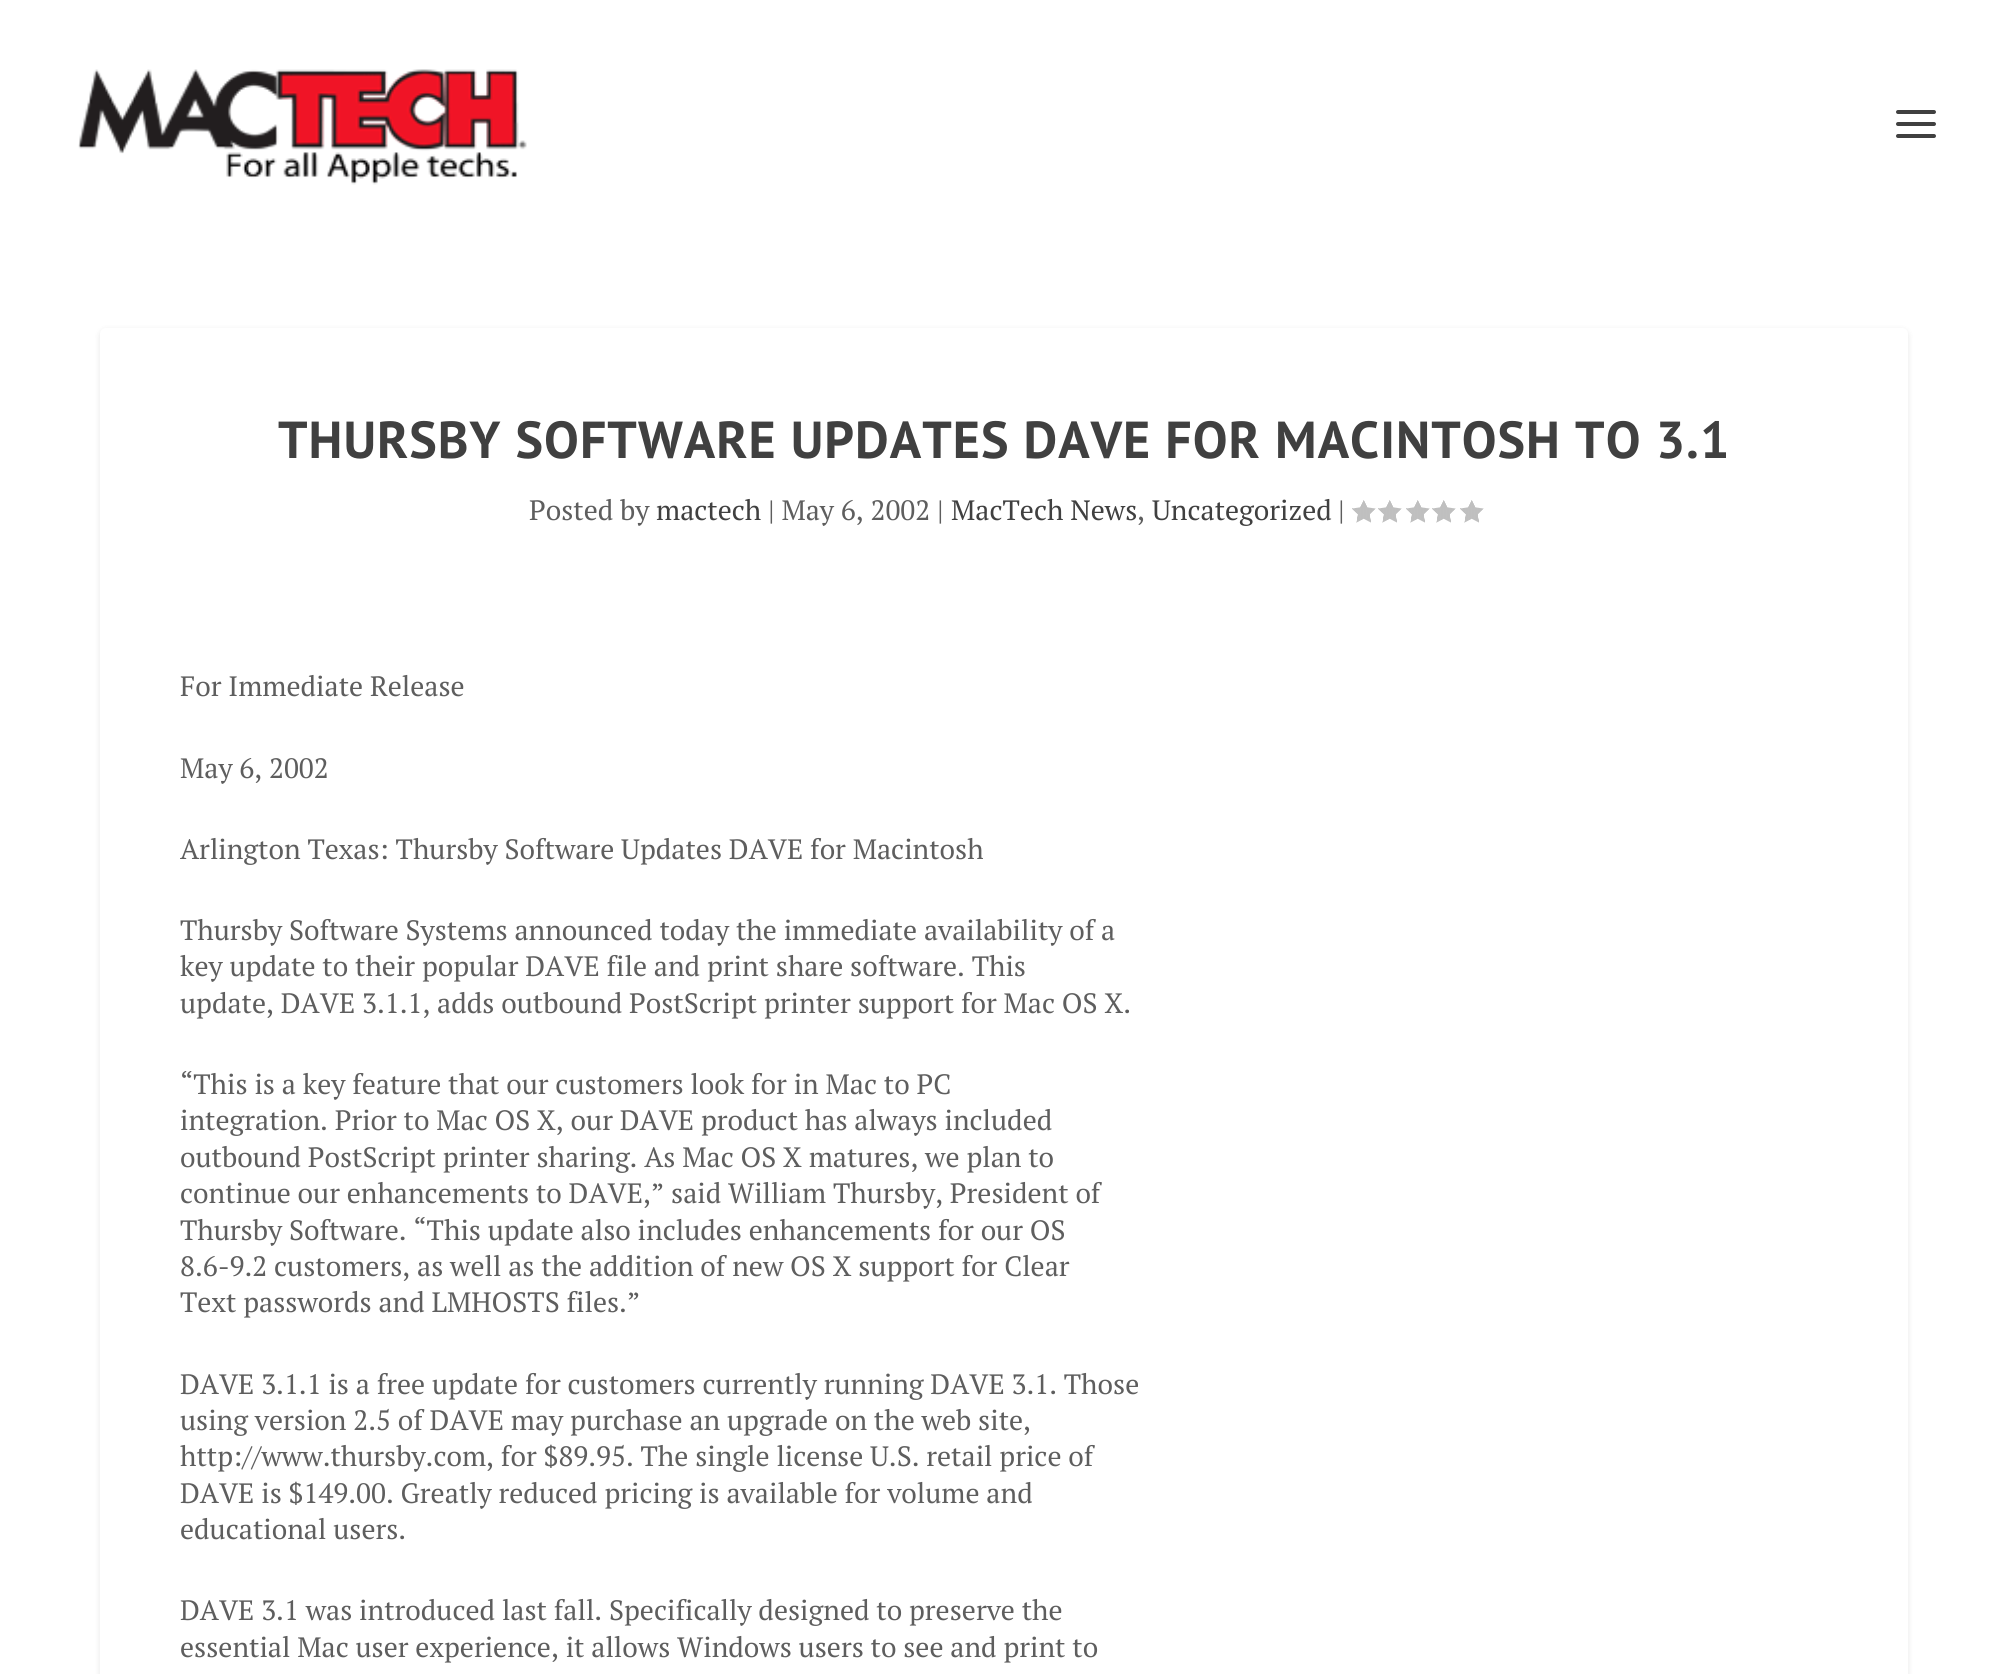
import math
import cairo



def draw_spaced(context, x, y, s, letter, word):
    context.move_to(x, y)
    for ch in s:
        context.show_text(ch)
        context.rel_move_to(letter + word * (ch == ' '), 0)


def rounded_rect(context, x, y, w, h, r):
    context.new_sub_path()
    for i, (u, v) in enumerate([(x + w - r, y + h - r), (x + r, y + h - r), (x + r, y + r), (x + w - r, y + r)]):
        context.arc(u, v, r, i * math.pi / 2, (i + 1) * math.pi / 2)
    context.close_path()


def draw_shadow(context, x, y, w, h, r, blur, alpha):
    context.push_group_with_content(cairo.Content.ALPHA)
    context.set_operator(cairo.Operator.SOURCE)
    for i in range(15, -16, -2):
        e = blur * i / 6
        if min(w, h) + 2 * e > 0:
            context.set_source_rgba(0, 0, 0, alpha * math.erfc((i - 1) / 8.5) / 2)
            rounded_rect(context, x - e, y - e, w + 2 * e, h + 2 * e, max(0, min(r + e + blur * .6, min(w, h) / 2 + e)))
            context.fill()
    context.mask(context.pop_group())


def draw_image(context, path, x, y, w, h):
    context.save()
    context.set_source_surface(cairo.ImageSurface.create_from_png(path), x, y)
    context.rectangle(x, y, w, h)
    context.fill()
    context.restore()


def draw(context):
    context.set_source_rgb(1, 1, 1)
    context.paint()
    draw_image(context, "images/1.png", 78, 69, 449, 116)
    context.set_source_rgb(64 / 255, 64 / 255, 64 / 255)
    rounded_rect(context, 1896, 110, 40, 4, 2)
    context.fill()
    rounded_rect(context, 1896, 122, 40, 4, 2)
    context.fill()
    rounded_rect(context, 1896, 134, 40, 4, 2)
    context.fill()
    context.set_source_rgb(0, 0, 0)
    draw_shadow(context, 100, 330, 1808, 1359, 6, 3, 0.1)
    context.set_source_rgb(1, 1, 1)
    rounded_rect(context, 100, 328, 1808, 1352, 6)
    context.fill()
    draw_image(context, "images/2.png", 1352, 500, 24, 23)
    draw_image(context, "images/2.png", 1378, 500, 24, 23)
    draw_image(context, "images/2.png", 1406, 500, 24, 23)
    draw_image(context, "images/2.png", 1432, 500, 24, 23)
    draw_image(context, "images/2.png", 1460, 500, 24, 23)
    context.select_font_face("PT Sans", cairo.FontSlant.NORMAL, cairo.FontWeight.BOLD)
    context.set_font_size(52)
    context.set_source_rgb(64 / 255, 64 / 255, 64 / 255)
    draw_spaced(context, 278, 458, "THURSBY SOFTWARE UPDATES DAVE FOR MACINTOSH TO 3.1", 1, 0)
    context.select_font_face("PT Serif")
    context.set_font_size(28)
    context.set_source_rgb(94 / 255, 94 / 255, 94 / 255)
    context.move_to(529, 520)
    context.show_text("Posted by")
    context.set_source_rgb(64 / 255, 64 / 255, 64 / 255)
    context.move_to(656, 520)
    context.show_text("mactech")
    context.set_source_rgb(94 / 255, 94 / 255, 94 / 255)
    context.move_to(768, 520)
    context.show_text("| May 6, 2002 |")
    context.set_source_rgb(64 / 255, 64 / 255, 64 / 255)
    context.move_to(951, 520)
    context.show_text("MacTech News")
    context.set_source_rgb(94 / 255, 94 / 255, 94 / 255)
    context.move_to(1137, 520)
    context.show_text(",")
    context.set_source_rgb(64 / 255, 64 / 255, 64 / 255)
    context.move_to(1152, 520)
    context.show_text("Uncategorized")
    context.set_source_rgb(94 / 255, 94 / 255, 94 / 255)
    context.move_to(1338, 520)
    context.show_text("|")
    context.move_to(180, 696)
    context.show_text("For Immediate Release")
    context.move_to(180, 778)
    context.show_text("May 6, 2002")
    context.move_to(180, 859)
    context.show_text("Arlington Texas: Thursby Software Updates DAVE for Macintosh")
    context.move_to(180, 940)
    context.show_text("Thursby Software Systems announced today the immediate availability of a")
    context.move_to(180, 976)
    context.show_text("key update to their popular DAVE file and print share software. This")
    context.move_to(180, 1013)
    context.show_text("update, DAVE 3.1.1, adds outbound PostScript printer support for Mac OS X.")
    context.move_to(180, 1094)
    context.show_text("“This is a key feature that our customers look for in Mac to PC")
    context.move_to(180, 1130)
    context.show_text("integration. Prior to Mac OS X, our DAVE product has always included")
    context.move_to(180, 1167)
    context.show_text("outbound PostScript printer sharing. As Mac OS X matures, we plan to")
    context.move_to(180, 1203)
    context.show_text("continue our enhancements to DAVE,” said William Thursby, President of")
    context.move_to(180, 1240)
    context.show_text("Thursby Software. “This update also includes enhancements for our OS")
    context.move_to(180, 1276)
    context.show_text("8.6-9.2 customers, as well as the addition of new OS X support for Clear")
    context.move_to(180, 1312)
    context.show_text("Text passwords and LMHOSTS files.”")
    context.move_to(180, 1394)
    context.show_text("DAVE 3.1.1 is a free update for customers currently running DAVE 3.1. Those")
    context.move_to(180, 1430)
    context.show_text("using version 2.5 of DAVE may purchase an upgrade on the web site,")
    context.move_to(180, 1466)
    context.show_text("http://www.thursby.com, for $89.95. The single license U.S. retail price of")
    context.move_to(180, 1503)
    context.show_text("DAVE is $149.00. Greatly reduced pricing is available for volume and")
    context.move_to(180, 1539)
    context.show_text("educational users.")
    context.move_to(180, 1620)
    context.show_text("DAVE 3.1 was introduced last fall. Specifically designed to preserve the")
    context.move_to(180, 1657)
    context.show_text("essential Mac user experience, it allows Windows users to see and print to")


surface = cairo.ImageSurface(cairo.Format.RGB24, 2008, 1674)
context = cairo.Context(surface)
options = cairo.FontOptions()
options.set_hint_metrics(cairo.HintMetrics.OFF)
options.set_hint_style(cairo.HintStyle.NONE)
context.set_font_options(options)
context.set_miter_limit(4)
draw(context)
surface.write_to_png("out.png")
